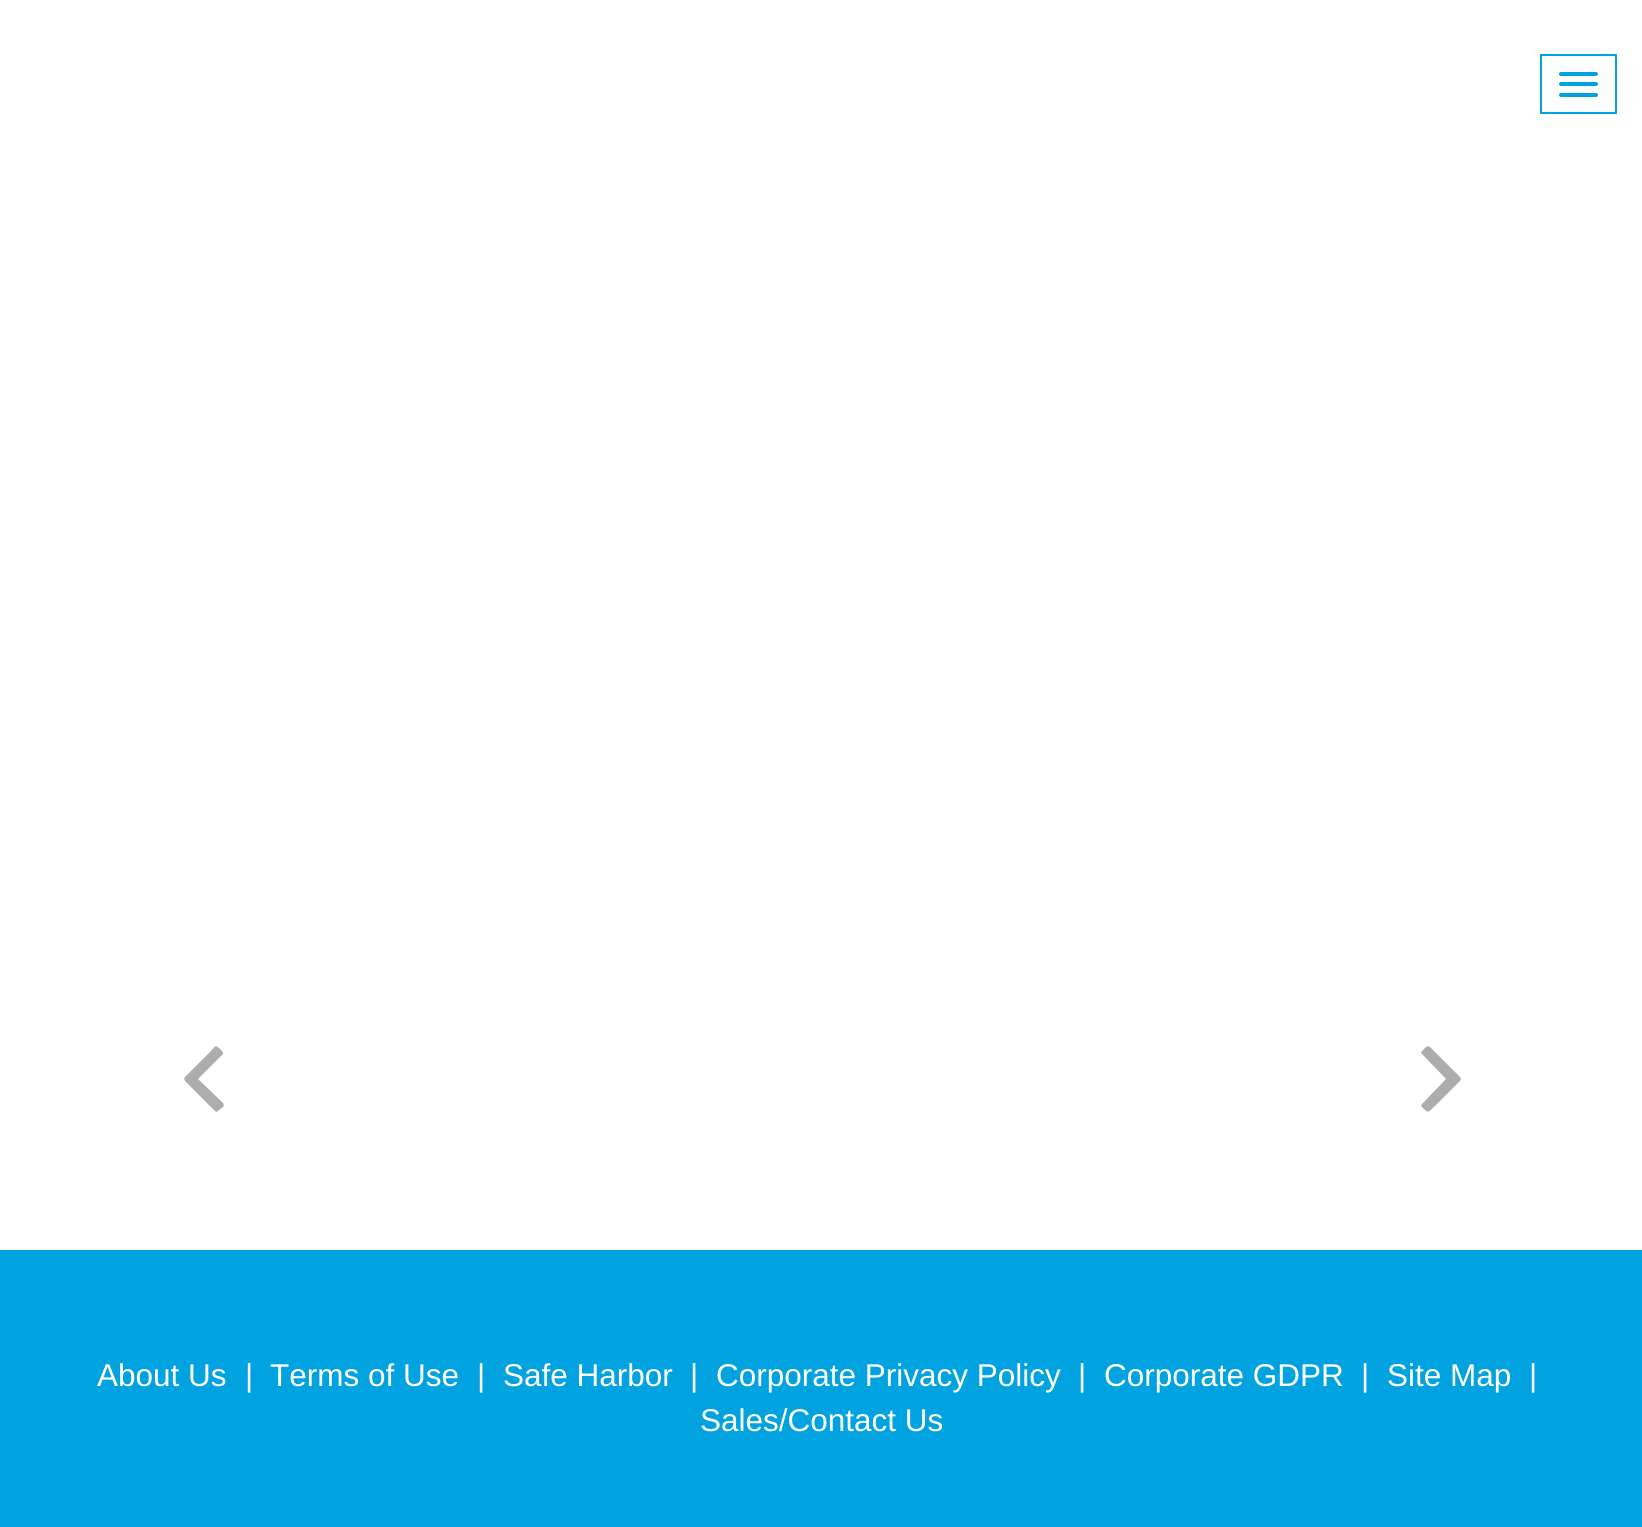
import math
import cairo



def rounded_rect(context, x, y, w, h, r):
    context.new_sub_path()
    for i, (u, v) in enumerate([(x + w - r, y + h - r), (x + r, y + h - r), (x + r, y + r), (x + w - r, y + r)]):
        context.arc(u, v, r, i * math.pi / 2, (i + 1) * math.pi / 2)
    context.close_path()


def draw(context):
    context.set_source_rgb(1, 1, 1)
    context.paint()
    context.rectangle(1541, 55, 75, 58)
    context.set_source_rgb(0, 163 / 255, 224 / 255)
    context.stroke()
    rounded_rect(context, 1559, 72, 39, 4, 2)
    context.fill()
    rounded_rect(context, 1559, 82, 39, 4, 2)
    context.fill()
    rounded_rect(context, 1559, 93, 39, 4, 2)
    context.fill()
    context.set_source_rgb(173 / 255, 173 / 255, 173 / 255)
    context.new_path()
    context.move_to(185, 1077)
    context.line_to(210, 1052)
    context.curve_to(214, 1048, 215, 1044, 219, 1048)
    context.line_to(223, 1052)
    context.line_to(223, 1054)
    context.line_to(198, 1079)
    context.line_to(223, 1103)
    context.curve_to(224, 1105, 224, 1106, 223, 1107)
    context.line_to(218, 1111)
    context.curve_to(217, 1112, 216, 1112, 215, 1111)
    context.line_to(185, 1081)
    context.curve_to(184, 1079, 184, 1078, 185, 1077)
    context.close_path()
    context.fill()
    context.new_path()
    context.move_to(1460, 1081)
    context.line_to(1435, 1106)
    context.curve_to(1430, 1110, 1429, 1114, 1425, 1110)
    context.line_to(1421, 1106)
    context.line_to(1422, 1104)
    context.line_to(1446, 1079)
    context.line_to(1422, 1054)
    context.curve_to(1421, 1053, 1421, 1052, 1422, 1051)
    context.line_to(1426, 1047)
    context.curve_to(1427, 1046, 1428, 1046, 1430, 1047)
    context.line_to(1460, 1077)
    context.curve_to(1461, 1078, 1461, 1079, 1460, 1081)
    context.close_path()
    context.fill()
    context.set_source_rgb(0, 163 / 255, 224 / 255)
    context.rectangle(0, 1250, 1642, 277)
    context.fill()
    context.select_font_face("Liberation Sans")
    context.set_font_size(31.5)
    context.set_source_rgb(1, 1, 1)
    context.move_to(97, 1386)
    context.show_text("About Us")
    context.move_to(245, 1386)
    context.show_text("|")
    context.move_to(270, 1386)
    context.show_text("Terms of Use")
    context.move_to(477, 1386)
    context.show_text("|")
    context.move_to(503, 1386)
    context.show_text("Safe Harbor")
    context.move_to(690, 1386)
    context.show_text("|")
    context.move_to(716, 1386)
    context.show_text("Corporate Privacy Policy")
    context.move_to(1078, 1386)
    context.show_text("|")
    context.move_to(1104, 1386)
    context.show_text("Corporate GDPR")
    context.move_to(1361, 1386)
    context.show_text("|")
    context.move_to(1387, 1386)
    context.show_text("Site Map")
    context.move_to(1529, 1386)
    context.show_text("|")
    context.move_to(700, 1431)
    context.show_text("Sales/Contact Us")


surface = cairo.ImageSurface(cairo.Format.RGB24, 1642, 1527)
context = cairo.Context(surface)
options = cairo.FontOptions()
options.set_hint_metrics(cairo.HintMetrics.OFF)
options.set_hint_style(cairo.HintStyle.NONE)
context.set_font_options(options)
context.set_miter_limit(4)
draw(context)
surface.write_to_png("out.png")
